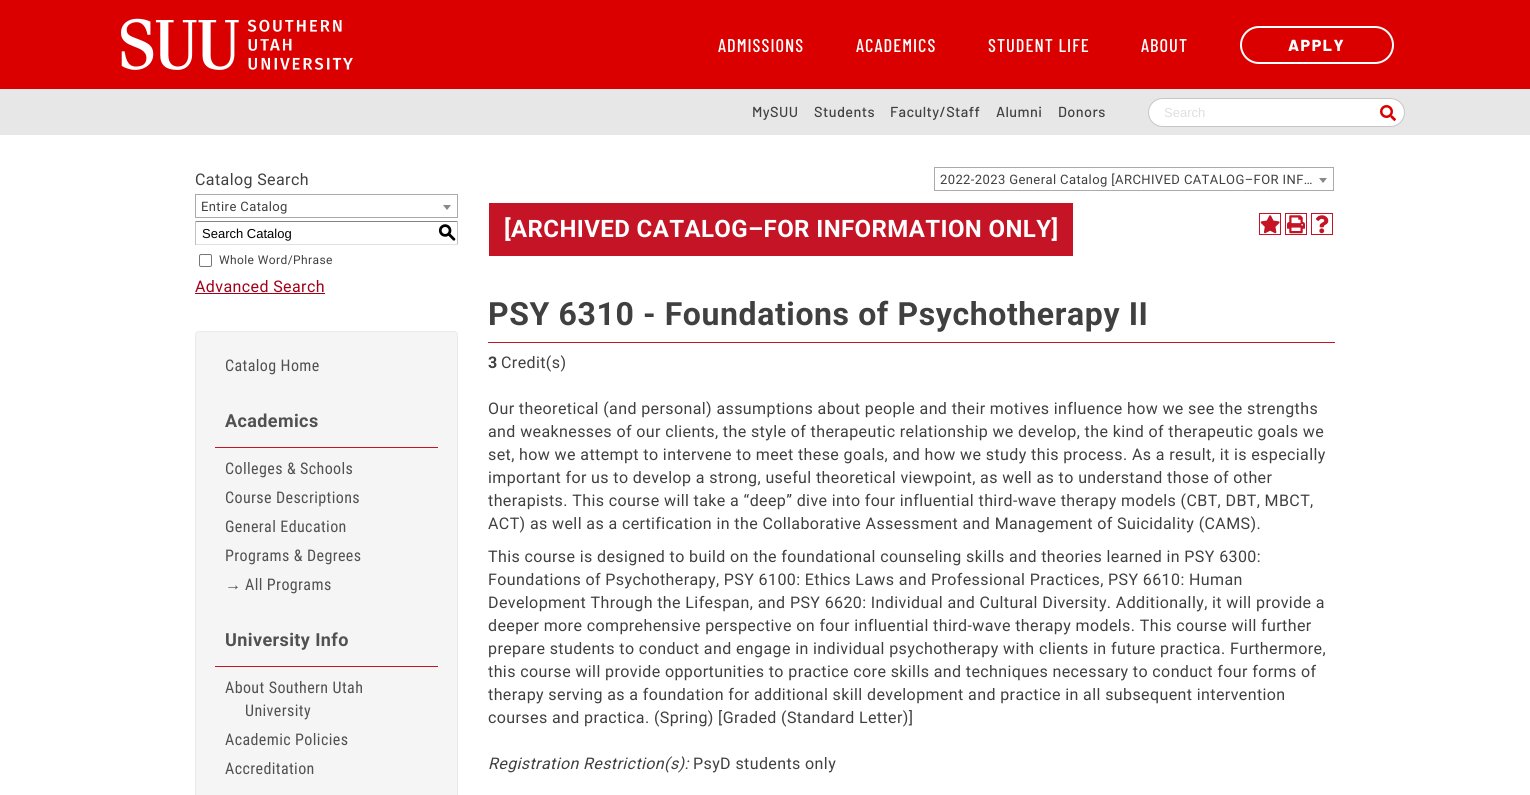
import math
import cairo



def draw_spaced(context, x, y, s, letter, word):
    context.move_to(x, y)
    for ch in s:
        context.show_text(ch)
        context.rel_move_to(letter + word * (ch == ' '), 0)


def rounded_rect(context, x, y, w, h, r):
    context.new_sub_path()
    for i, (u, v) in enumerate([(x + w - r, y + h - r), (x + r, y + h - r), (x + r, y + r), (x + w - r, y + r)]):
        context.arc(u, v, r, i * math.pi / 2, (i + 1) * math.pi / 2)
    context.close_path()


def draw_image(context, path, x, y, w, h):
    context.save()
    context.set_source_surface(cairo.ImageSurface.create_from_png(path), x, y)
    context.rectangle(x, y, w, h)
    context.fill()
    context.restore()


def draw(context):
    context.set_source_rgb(1, 1, 1)
    context.paint()
    context.set_source_rgb(219 / 255, 0, 0)
    context.rectangle(0, 0, 1530, 89)
    context.fill()
    draw_image(context, "images/1.png", 121, 18, 232, 52)
    rounded_rect(context, 1241, 27, 152, 36, 18)
    context.set_source_rgb(1, 1, 1)
    context.stroke()
    context.set_source_rgb(231 / 255, 231 / 255, 231 / 255)
    context.rectangle(0, 89, 1530, 46)
    context.fill()
    context.set_source_rgb(1, 1, 1)
    rounded_rect(context, 1148.5, 98.5, 256, 28, 14)
    context.fill_preserve()
    context.set_source_rgb(198 / 255, 198 / 255, 197 / 255)
    context.set_line_width(1)
    context.stroke()
    draw_image(context, "images/2.png", 1380, 105, 16, 16)
    context.rectangle(195.5, 194.5, 262, 23)
    context.set_source_rgb(170 / 255, 170 / 255, 170 / 255)
    context.stroke()
    context.set_source_rgb(136 / 255, 136 / 255, 136 / 255)
    context.new_path()
    context.move_to(443, 205)
    context.line_to(451, 205)
    context.line_to(447, 210)
    context.close_path()
    context.fill()
    context.set_source_rgb(132 / 255, 132 / 255, 132 / 255)
    context.rectangle(195, 221, 263, 1)
    context.fill()
    context.set_source_rgb(193 / 255, 193 / 255, 193 / 255)
    context.rectangle(457, 221, 1, 24)
    context.fill()
    context.set_source_rgb(225 / 255, 225 / 255, 225 / 255)
    context.rectangle(195, 244, 263, 1)
    context.fill()
    context.set_source_rgb(193 / 255, 193 / 255, 193 / 255)
    context.rectangle(195, 221, 1, 24)
    context.fill()
    rounded_rect(context, 199.5, 254.5, 12, 12, 1.5)
    context.set_source_rgb(118 / 255, 118 / 255, 118 / 255)
    context.stroke()
    context.set_source_rgb(161 / 255, 0, 26 / 255)
    context.rectangle(195, 293, 130, 1)
    context.fill()
    context.set_source_rgb(245 / 255, 245 / 255, 245 / 255)
    rounded_rect(context, 195, 331, 263, 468, 4)
    context.fill()
    context.set_source_rgba(0, 0, 0, 0.05)
    context.set_fill_rule(cairo.FillRule.EVEN_ODD)
    context.new_path()
    context.move_to(199, 331)
    context.line_to(454, 331)
    context.curve_to(456, 331, 458, 333, 458, 335)
    context.line_to(458, 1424)
    context.curve_to(458, 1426, 456, 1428, 454, 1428)
    context.line_to(199, 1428)
    context.curve_to(197, 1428, 195, 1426, 195, 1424)
    context.line_to(195, 335)
    context.curve_to(195, 333, 197, 331, 199, 331)
    context.close_path()
    context.move_to(199, 332)
    context.line_to(454, 332)
    context.curve_to(456, 332, 457, 333, 457, 335)
    context.line_to(457, 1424)
    context.curve_to(457, 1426, 456, 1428, 454, 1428)
    context.line_to(199, 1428)
    context.curve_to(197, 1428, 196, 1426, 196, 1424)
    context.line_to(196, 335)
    context.curve_to(196, 333, 197, 332, 199, 332)
    context.close_path()
    context.fill()
    context.set_source_rgb(196 / 255, 20 / 255, 37 / 255)
    context.rectangle(215, 447, 223, 1)
    context.fill()
    context.rectangle(215, 666, 223, 1)
    context.fill()
    context.rectangle(489, 203, 584, 53)
    context.fill()
    context.rectangle(1259.5, 213.5, 21, 21)
    context.stroke()
    draw_image(context, "images/3.png", 1260, 215, 20, 19)
    context.rectangle(1285.5, 213.5, 21, 21)
    context.stroke()
    draw_image(context, "images/4.png", 1287, 215, 18, 19)
    context.rectangle(1311.5, 213.5, 21, 21)
    context.stroke()
    draw_image(context, "images/5.png", 1316, 215, 13, 19)
    context.rectangle(488, 342, 847, 1)
    context.fill()
    context.rectangle(934.5, 167.5, 399, 23)
    context.set_source_rgb(170 / 255, 170 / 255, 170 / 255)
    context.stroke()
    context.set_source_rgb(136 / 255, 136 / 255, 136 / 255)
    context.set_fill_rule(cairo.FillRule.WINDING)
    context.new_path()
    context.move_to(1319, 178)
    context.line_to(1327, 178)
    context.line_to(1323, 183)
    context.close_path()
    context.fill()
    context.select_font_face("Barlow Condensed Medium")
    context.set_font_size(18.5)
    context.set_source_rgb(1, 1, 1)
    draw_spaced(context, 718, 52, "ADMISSIONS", 1, 0)
    draw_spaced(context, 856, 52, "ACADEMICS", 1, 0)
    draw_spaced(context, 988, 52, "STUDENT LIFE", 1, 0)
    draw_spaced(context, 1141, 52, "ABOUT", 1, 0)
    context.select_font_face("Barlow ExtraBold")
    context.set_font_size(16)
    draw_spaced(context, 1288, 51, "APPLY", 1.5, 0)
    context.select_font_face("Barlow Medium")
    context.set_font_size(14.5)
    context.set_source_rgb(64 / 255, 64 / 255, 64 / 255)
    draw_spaced(context, 752, 117, "MySUU", 0.4, 0)
    draw_spaced(context, 814, 117, "Students", 0.4, 0)
    draw_spaced(context, 890, 117, "Faculty/Staff", 0.4, 0)
    draw_spaced(context, 996, 117, "Alumni", 0.4, 0)
    draw_spaced(context, 1058, 117, "Donors", 0.4, 0)
    context.select_font_face("Liberation Sans")
    context.set_font_size(13)
    context.set_source_rgb(223 / 255, 223 / 255, 223 / 255)
    context.move_to(1164, 117)
    context.show_text("Search")
    context.select_font_face("Roboto")
    context.set_font_size(16)
    context.set_source_rgb(64 / 255, 64 / 255, 64 / 255)
    draw_spaced(context, 195, 185, "Catalog Search", 0.4, 0)
    context.set_font_size(13)
    draw_spaced(context, 201, 211, "Entire Catalog", 0.4, 0)
    context.select_font_face("Liberation Sans")
    context.set_source_rgb(0, 0, 0)
    context.move_to(202, 238)
    context.show_text("Search Catalog")
    context.select_font_face("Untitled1 Medium")
    context.set_font_size(18)
    draw_spaced(context, 438, 238, "S", 0.4, 0)
    context.select_font_face("Roboto")
    context.set_font_size(12)
    context.set_source_rgb(64 / 255, 64 / 255, 64 / 255)
    draw_spaced(context, 219, 264, "Whole Word/Phrase", 0.4, 0)
    context.set_font_size(16)
    context.set_source_rgb(161 / 255, 0, 26 / 255)
    draw_spaced(context, 195, 292, "Advanced Search", 0.4, 0)
    context.select_font_face("Roboto Condensed")
    context.set_source_rgb(81 / 255, 81 / 255, 81 / 255)
    draw_spaced(context, 225, 371, "Catalog Home", 0.4, 0)
    context.select_font_face("Roboto", cairo.FontSlant.NORMAL, cairo.FontWeight.BOLD)
    context.set_font_size(18)
    draw_spaced(context, 225, 427, "Academics", 0.4, 0)
    context.select_font_face("Roboto Condensed")
    context.set_font_size(16)
    draw_spaced(context, 225, 474, "Colleges & Schools", 0.4, 0)
    draw_spaced(context, 225, 503, "Course Descriptions", 0.4, 0)
    draw_spaced(context, 225, 532, "General Education", 0.4, 0)
    draw_spaced(context, 225, 561, "Programs & Degrees", 0.4, 0)
    context.select_font_face("Liberation Sans")
    draw_spaced(context, 225, 590, "→", 0.4, 0)
    context.select_font_face("Roboto Condensed")
    draw_spaced(context, 245, 590, "All Programs", 0.4, 0)
    context.select_font_face("Roboto", cairo.FontSlant.NORMAL, cairo.FontWeight.BOLD)
    context.set_font_size(18)
    draw_spaced(context, 225, 646, "University Info", 0.4, 0)
    context.select_font_face("Roboto Condensed")
    context.set_font_size(16)
    draw_spaced(context, 225, 693, "About Southern Utah", 0.4, 0)
    draw_spaced(context, 245, 716, "University", 0.4, 0)
    draw_spaced(context, 225, 745, "Academic Policies", 0.4, 0)
    draw_spaced(context, 225, 774, "Accreditation", 0.4, 0)
    context.select_font_face("Roboto", cairo.FontSlant.NORMAL, cairo.FontWeight.BOLD)
    context.set_font_size(24)
    context.set_source_rgb(1, 1, 1)
    draw_spaced(context, 504, 237, "[ARCHIVED CATALOG–FOR INFORMATION ONLY]", 0.4, 0)
    context.set_font_size(32)
    context.set_source_rgb(64 / 255, 64 / 255, 64 / 255)
    draw_spaced(context, 488, 325, "PSY 6310 - Foundations of Psychotherapy II", 0.6, 0)
    context.set_font_size(16)
    draw_spaced(context, 488, 368, "3", 0.4, 0)
    context.select_font_face("Roboto")
    draw_spaced(context, 501, 368, "Credit(s)", 0.4, 0)
    draw_spaced(context, 488, 414, "Our theoretical (and personal) assumptions about people and their motives influence how we see the strengths", 0.4, 0)
    draw_spaced(context, 488, 437, "and weaknesses of our clients, the style of therapeutic relationship we develop, the kind of therapeutic goals we", 0.4, 0)
    draw_spaced(context, 488, 460, "set, how we attempt to intervene to meet these goals, and how we study this process. As a result, it is especially", 0.4, 0)
    draw_spaced(context, 488, 483, "important for us to develop a strong, useful theoretical viewpoint, as well as to understand those of other", 0.4, 0)
    draw_spaced(context, 488, 506, "therapists. This course will take a “deep” dive into four influential third-wave therapy models (CBT, DBT, MBCT,", 0.4, 0)
    draw_spaced(context, 488, 529, "ACT) as well as a certification in the Collaborative Assessment and Management of Suicidality (CAMS).", 0.4, 0)
    draw_spaced(context, 488, 562, "This course is designed to build on the foundational counseling skills and theories learned in PSY 6300:", 0.4, 0)
    draw_spaced(context, 488, 585, "Foundations of Psychotherapy, PSY 6100: Ethics Laws and Professional Practices, PSY 6610: Human", 0.4, 0)
    draw_spaced(context, 488, 608, "Development Through the Lifespan, and PSY 6620: Individual and Cultural Diversity. Additionally, it will provide a", 0.4, 0)
    draw_spaced(context, 488, 631, "deeper more comprehensive perspective on four influential third-wave therapy models. This course will further", 0.4, 0)
    draw_spaced(context, 488, 654, "prepare students to conduct and engage in individual psychotherapy with clients in future practica. Furthermore,", 0.4, 0)
    draw_spaced(context, 488, 677, "this course will provide opportunities to practice core skills and techniques necessary to conduct four forms of", 0.4, 0)
    draw_spaced(context, 488, 700, "therapy serving as a foundation for additional skill development and practice in all subsequent intervention", 0.4, 0)
    draw_spaced(context, 488, 723, "courses and practica. (Spring) [Graded (Standard Letter)]", 0.4, 0)
    context.select_font_face("Roboto", cairo.FontSlant.ITALIC)
    draw_spaced(context, 488, 769, "Registration Restriction(s):", 0.4, 0)
    context.select_font_face("Roboto")
    draw_spaced(context, 693, 769, "PsyD students only", 0.4, 0)
    context.set_font_size(13)
    draw_spaced(context, 940, 184, "2022-2023 General Catalog [ARCHIVED CATALOG–FOR INF…", 0.4, 0)


surface = cairo.ImageSurface(cairo.Format.RGB24, 1530, 795)
context = cairo.Context(surface)
options = cairo.FontOptions()
options.set_hint_metrics(cairo.HintMetrics.OFF)
options.set_hint_style(cairo.HintStyle.NONE)
context.set_font_options(options)
context.set_miter_limit(4)
draw(context)
surface.write_to_png("out.png")
